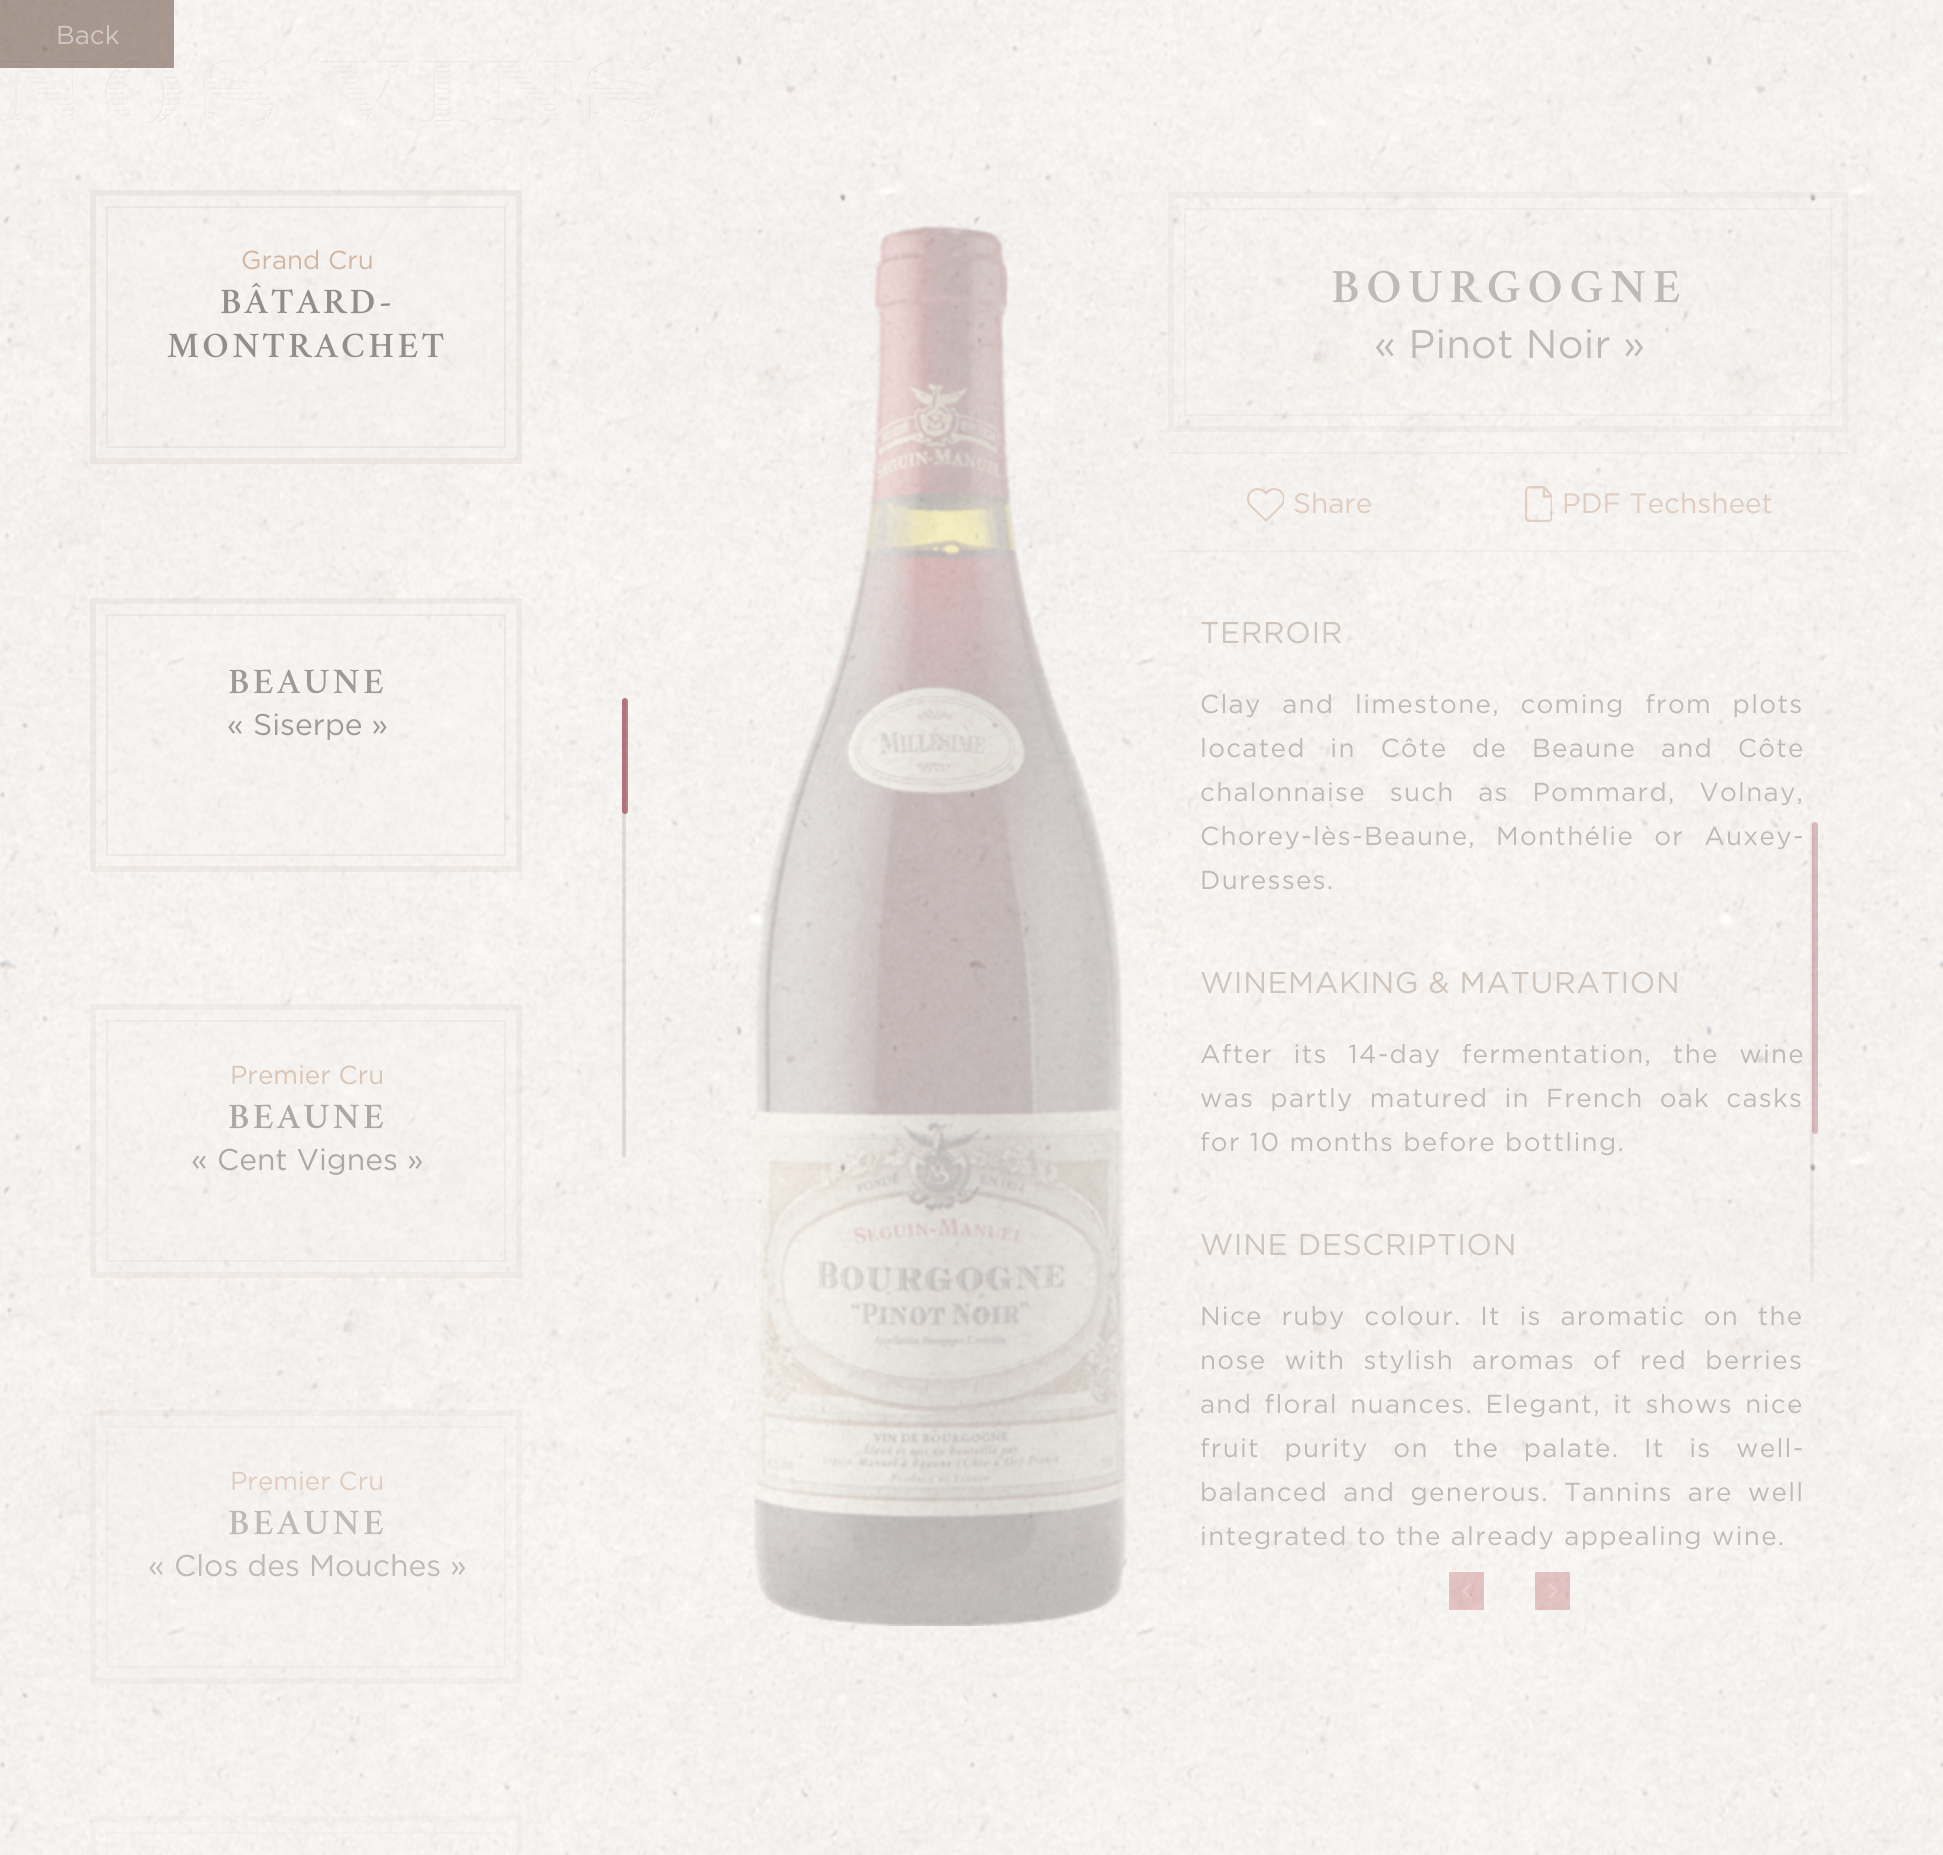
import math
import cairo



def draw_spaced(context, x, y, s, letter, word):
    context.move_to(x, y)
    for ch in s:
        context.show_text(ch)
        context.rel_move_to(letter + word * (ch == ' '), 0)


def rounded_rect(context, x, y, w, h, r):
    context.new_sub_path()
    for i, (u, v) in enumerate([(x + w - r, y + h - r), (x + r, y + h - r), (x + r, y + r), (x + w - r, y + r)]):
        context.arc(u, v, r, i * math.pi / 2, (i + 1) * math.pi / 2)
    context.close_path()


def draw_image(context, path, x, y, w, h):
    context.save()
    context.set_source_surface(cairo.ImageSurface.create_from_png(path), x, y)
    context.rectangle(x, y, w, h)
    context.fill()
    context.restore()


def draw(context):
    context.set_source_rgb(1, 1, 1)
    context.paint()
    draw_image(context, "images/1.png", 0, 0, 1943, 1855)
    draw_image(context, "images/2.png", 1, 60, 656, 63)
    context.set_source_rgba(86 / 255, 57 / 255, 41 / 255, 0.49)
    context.rectangle(0, 0, 174, 68)
    context.fill()
    context.rectangle(93, 193, 426, 268)
    context.set_source_rgba(223 / 255, 214 / 255, 209 / 255, 0.4)
    context.set_line_width(6)
    context.stroke()
    draw_image(context, "images/3.png", 97, 195, 420, 262)
    context.rectangle(107, 207, 398, 240)
    context.set_line_width(2)
    context.stroke()
    context.rectangle(93, 601, 426, 268)
    context.set_source_rgba(223 / 255, 214 / 255, 209 / 255, 0.36)
    context.set_line_width(6)
    context.stroke()
    draw_image(context, "images/4.png", 97, 603, 420, 261)
    context.rectangle(107, 615, 398, 240)
    context.set_line_width(2)
    context.stroke()
    context.rectangle(93, 1007, 426, 268)
    context.set_source_rgba(223 / 255, 214 / 255, 209 / 255, 0.3)
    context.set_line_width(6)
    context.stroke()
    draw_image(context, "images/5.png", 101, 1011, 416, 261)
    context.rectangle(107, 1021, 398, 240)
    context.set_line_width(2)
    context.stroke()
    context.rectangle(93, 1413, 426, 268)
    context.set_source_rgba(223 / 255, 214 / 255, 209 / 255, 0.23)
    context.set_line_width(6)
    context.stroke()
    draw_image(context, "images/6.png", 101, 1416, 409, 262)
    context.rectangle(107, 1427, 398, 240)
    context.set_line_width(2)
    context.stroke()
    context.rectangle(93, 1819, 426, 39)
    context.set_source_rgba(223 / 255, 214 / 255, 209 / 255, 0.16)
    context.set_line_width(6)
    context.stroke()
    context.rectangle(107, 1833, 398, 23)
    context.set_line_width(2)
    context.stroke()
    context.set_source_rgba(0, 0, 0, 0.1)
    rounded_rect(context, 622, 698, 4, 460, 2)
    context.fill()
    context.set_source_rgba(132 / 255, 7 / 255, 25 / 255, 0.49)
    rounded_rect(context, 622, 698, 6, 116, 3)
    context.fill()
    draw_image(context, "images/7.png", 753, 226, 375, 1400)
    context.rectangle(1171, 195, 674, 234)
    context.set_source_rgba(223 / 255, 214 / 255, 209 / 255, 0.24)
    context.set_line_width(6)
    context.stroke()
    context.rectangle(1185, 209, 646, 206)
    context.set_line_width(2)
    context.stroke()
    context.rectangle(1168, 452, 680, 2)
    context.fill()
    context.rectangle(1168, 550, 680, 2)
    context.fill()
    draw_image(context, "images/8.png", 1247, 488, 37, 34)
    draw_image(context, "images/9.png", 1525, 486, 27, 36)
    context.set_source_rgba(0, 0, 0, 0.05)
    context.rectangle(1810, 822, 4, 460)
    context.fill()
    context.set_source_rgba(132 / 255, 7 / 255, 25 / 255, 0.24)
    rounded_rect(context, 1812, 822, 6, 312, 3)
    context.fill()
    draw_image(context, "images/10.png", 1449, 1572, 35, 38)
    draw_image(context, "images/11.png", 1535, 1572, 35, 38)
    context.select_font_face("Gotham")
    context.set_font_size(26)
    context.set_source_rgb(209 / 255, 201 / 255, 197 / 255)
    context.move_to(56, 44)
    context.show_text("Back")
    context.set_source_rgb(209 / 255, 182 / 255, 161 / 255)
    context.move_to(241, 269)
    context.show_text("Grand Cru")
    context.select_font_face("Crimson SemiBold")
    context.set_font_size(36)
    context.set_source_rgb(145 / 255, 143 / 255, 141 / 255)
    draw_spaced(context, 220, 313, "BÂTARD-", 3.4, 0)
    draw_spaced(context, 167, 357, "MONTRACHET", 3.4, 0)
    context.set_source_rgb(157 / 255, 155 / 255, 154 / 255)
    draw_spaced(context, 228, 693, "BEAUNE", 3.4, 0)
    context.select_font_face("Gotham")
    context.set_font_size(30)
    context.move_to(227, 735)
    context.show_text("«")
    context.move_to(253, 735)
    context.show_text("Siserpe »")
    context.set_font_size(26)
    context.set_source_rgb(218 / 255, 197 / 255, 181 / 255)
    context.move_to(230, 1084)
    context.show_text("Premier Cru")
    context.select_font_face("Crimson SemiBold")
    context.set_font_size(36)
    context.set_source_rgb(170 / 255, 169 / 255, 167 / 255)
    draw_spaced(context, 228, 1128, "BEAUNE", 3.4, 0)
    context.select_font_face("Gotham")
    context.set_font_size(30)
    context.move_to(191, 1170)
    context.show_text("«")
    context.move_to(217, 1170)
    context.show_text("Cent Vignes")
    context.move_to(407, 1170)
    context.show_text("»")
    context.set_font_size(26)
    context.set_source_rgb(224 / 255, 205 / 255, 191 / 255)
    context.move_to(230, 1490)
    context.show_text("Premier Cru")
    context.select_font_face("Crimson SemiBold")
    context.set_font_size(36)
    context.set_source_rgb(189 / 255, 186 / 255, 184 / 255)
    draw_spaced(context, 228, 1534, "BEAUNE", 3.4, 0)
    context.select_font_face("Gotham")
    context.set_font_size(30)
    context.move_to(148, 1576)
    context.show_text("«")
    context.move_to(174, 1576)
    context.show_text("Clos des Mouches")
    context.move_to(450, 1576)
    context.show_text("»")
    context.select_font_face("Crimson SemiBold")
    context.set_font_size(48)
    draw_spaced(context, 1331, 302, "BOURGOGNE", 6.75, 0)
    context.select_font_face("Gotham")
    context.set_font_size(40)
    draw_spaced(context, 1374, 358, "« Pinot Noir", 0.25, 0)
    draw_spaced(context, 1623, 358, "»", 0.25, 0)
    context.set_font_size(28)
    context.set_source_rgb(224 / 255, 205 / 255, 191 / 255)
    context.move_to(1293, 513)
    context.show_text("Share")
    context.move_to(1562, 513)
    context.show_text("PDF Techsheet")
    context.set_font_size(30)
    context.set_source_rgb(207 / 255, 197 / 255, 189 / 255)
    draw_spaced(context, 1200, 643, "TERROIR", 0.6, 0)
    context.set_font_size(26)
    context.set_source_rgb(189 / 255, 186 / 255, 184 / 255)
    draw_spaced(context, 1200, 713, "Clay and limestone, coming from plots", 1.3, 11.5)
    draw_spaced(context, 1200, 757, "located in Côte de Beaune and Côte", 1.3, 15.5)
    draw_spaced(context, 1200, 801, "chalonnaise such as Pommard, Volnay,", 1.3, 14.5)
    draw_spaced(context, 1200, 845, "Chorey-lès-Beaune, Monthélie or Auxey-", 1.3, 11)
    draw_spaced(context, 1200, 889, "Duresses.", 1.3, 0)
    context.set_font_size(30)
    context.set_source_rgb(207 / 255, 197 / 255, 189 / 255)
    draw_spaced(context, 1200, 993, "WINEMAKING & MATURATION", 0.6, 0)
    context.set_font_size(26)
    context.set_source_rgb(189 / 255, 186 / 255, 184 / 255)
    draw_spaced(context, 1200, 1063, "After its 14-day fermentation, the wine", 1.3, 11.5)
    draw_spaced(context, 1200, 1107, "was partly matured in French oak casks", 1.3, 7)
    draw_spaced(context, 1200, 1151, "for 10 months before bottling.", 1.3, 0)
    context.set_font_size(30)
    context.set_source_rgb(207 / 255, 197 / 255, 189 / 255)
    draw_spaced(context, 1200, 1255, "WINE DESCRIPTION", 0.6, 0)
    context.set_font_size(26)
    context.set_source_rgb(189 / 255, 186 / 255, 184 / 255)
    draw_spaced(context, 1200, 1325, "Nice ruby colour. It is aromatic on the", 1.3, 9.5)
    draw_spaced(context, 1200, 1369, "nose with stylish aromas of red berries", 1.3, 9)
    draw_spaced(context, 1200, 1413, "and floral nuances. Elegant, it shows nice", 1.3, 3.25)
    draw_spaced(context, 1200, 1457, "fruit purity on the palate. It is well-", 1.3, 15.5)
    draw_spaced(context, 1200, 1501, "balanced and generous. Tannins are well", 1.3, 6)
    draw_spaced(context, 1200, 1545, "integrated to the already appealing wine.", 1.3, 0)


surface = cairo.ImageSurface(cairo.Format.RGB24, 1943, 1855)
context = cairo.Context(surface)
options = cairo.FontOptions()
options.set_hint_metrics(cairo.HintMetrics.OFF)
options.set_hint_style(cairo.HintStyle.NONE)
context.set_font_options(options)
context.set_miter_limit(4)
draw(context)
surface.write_to_png("out.png")
